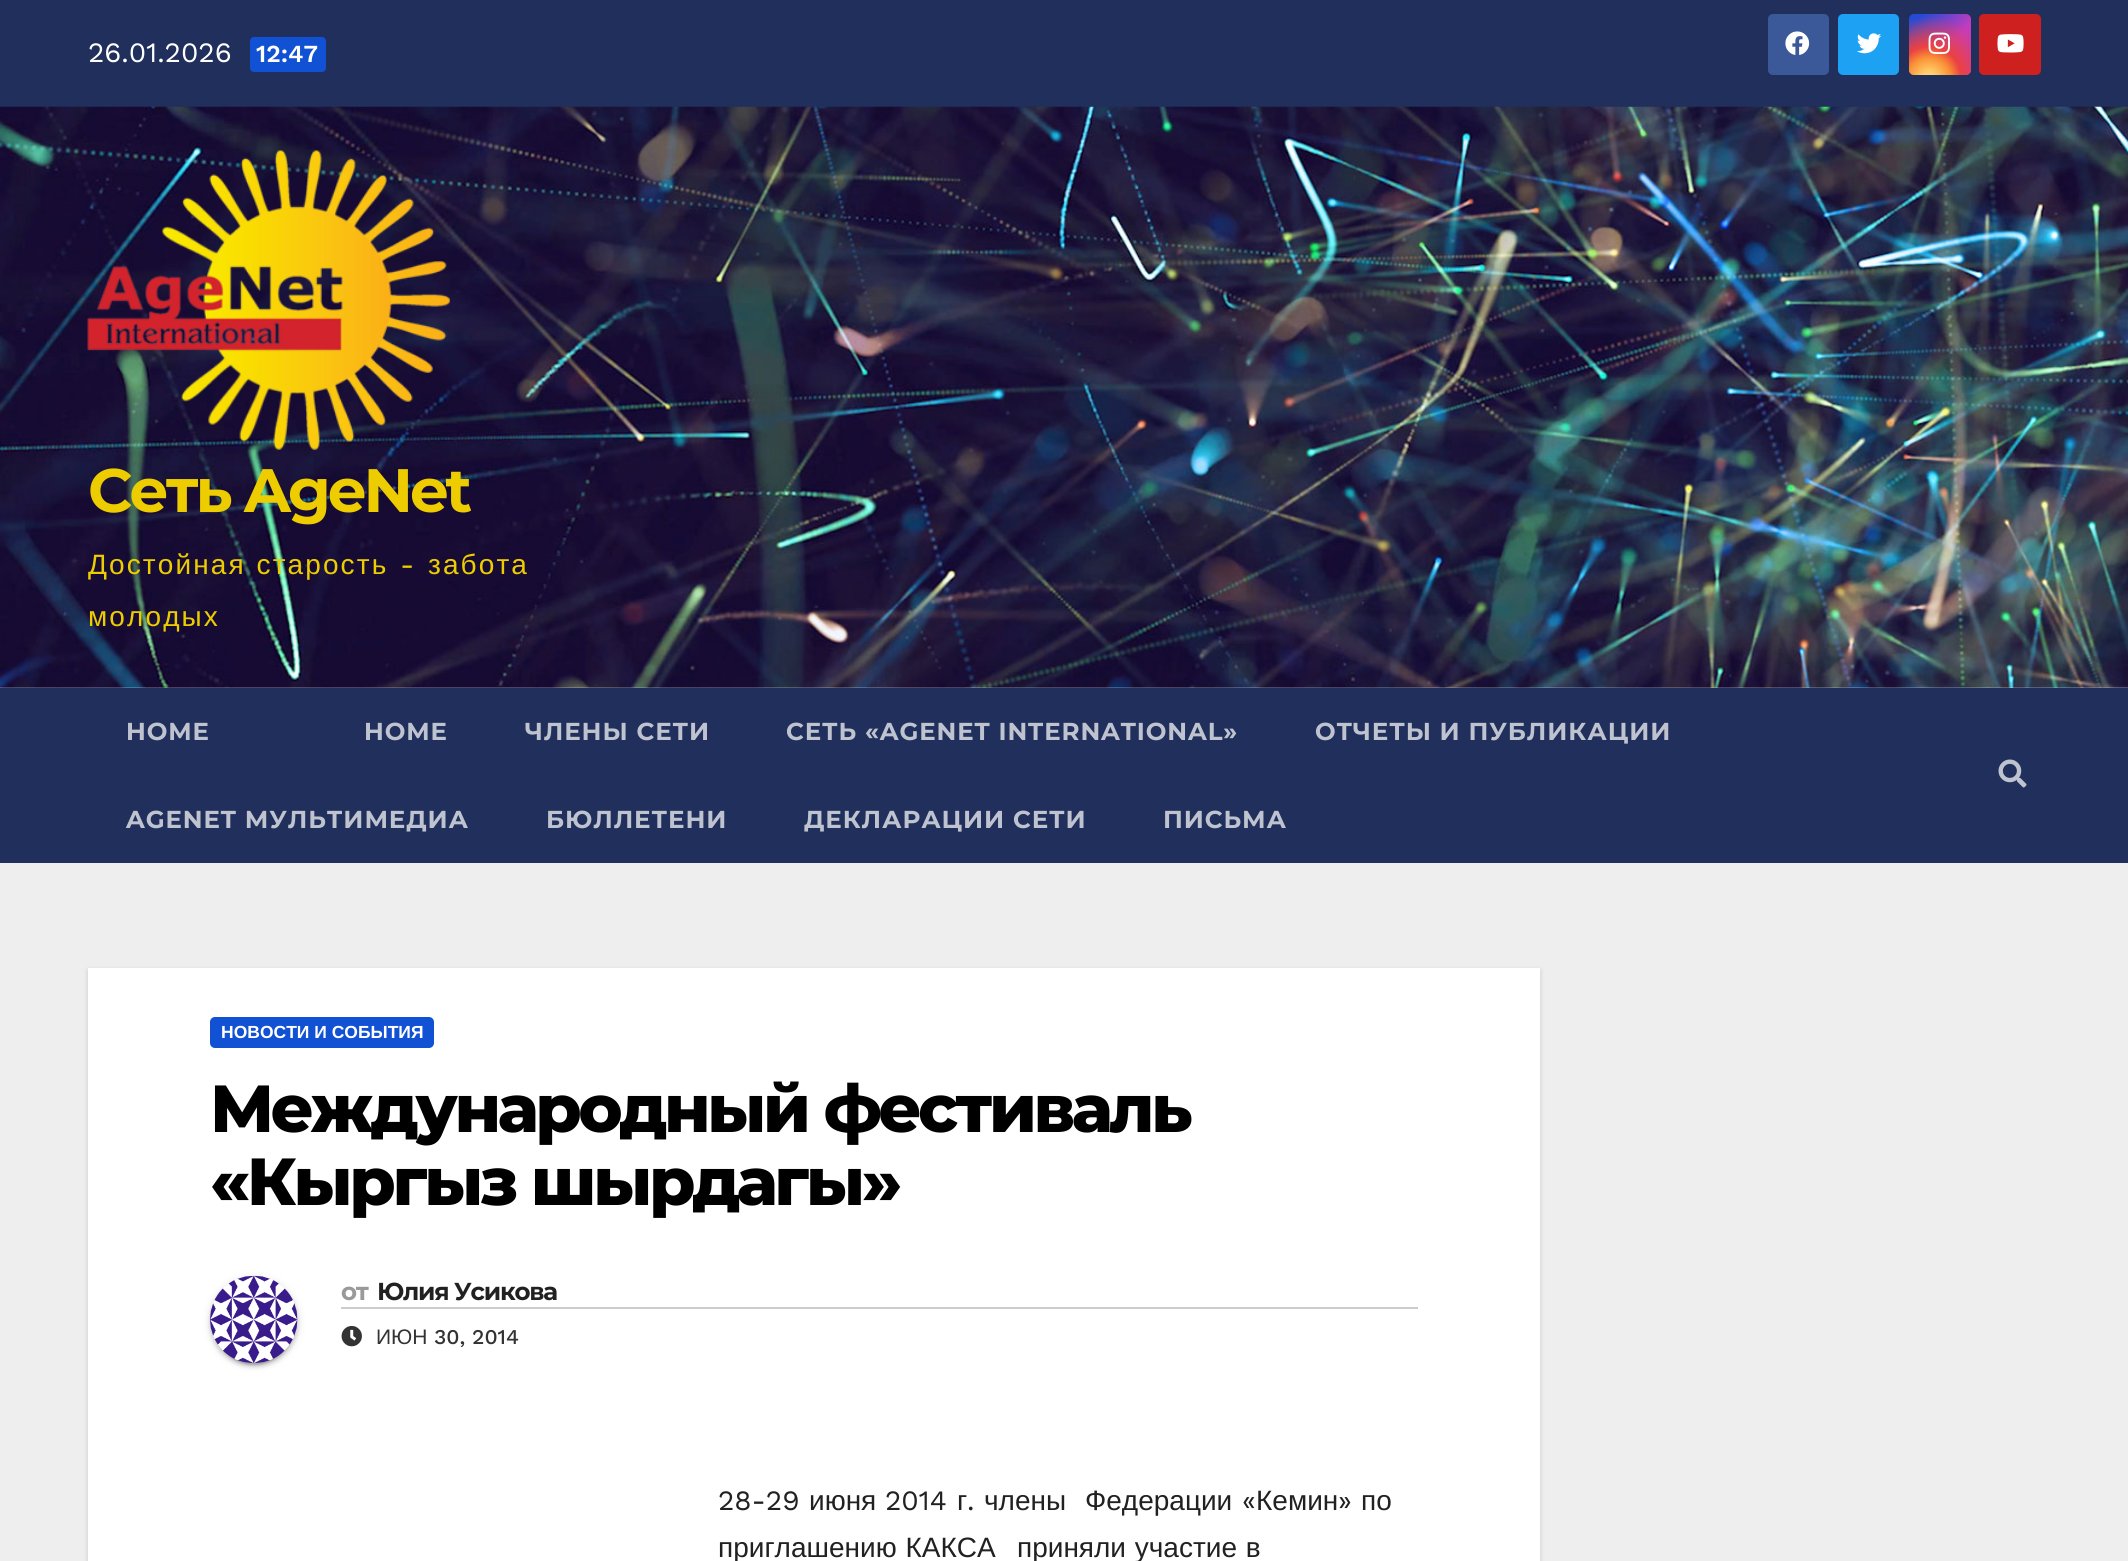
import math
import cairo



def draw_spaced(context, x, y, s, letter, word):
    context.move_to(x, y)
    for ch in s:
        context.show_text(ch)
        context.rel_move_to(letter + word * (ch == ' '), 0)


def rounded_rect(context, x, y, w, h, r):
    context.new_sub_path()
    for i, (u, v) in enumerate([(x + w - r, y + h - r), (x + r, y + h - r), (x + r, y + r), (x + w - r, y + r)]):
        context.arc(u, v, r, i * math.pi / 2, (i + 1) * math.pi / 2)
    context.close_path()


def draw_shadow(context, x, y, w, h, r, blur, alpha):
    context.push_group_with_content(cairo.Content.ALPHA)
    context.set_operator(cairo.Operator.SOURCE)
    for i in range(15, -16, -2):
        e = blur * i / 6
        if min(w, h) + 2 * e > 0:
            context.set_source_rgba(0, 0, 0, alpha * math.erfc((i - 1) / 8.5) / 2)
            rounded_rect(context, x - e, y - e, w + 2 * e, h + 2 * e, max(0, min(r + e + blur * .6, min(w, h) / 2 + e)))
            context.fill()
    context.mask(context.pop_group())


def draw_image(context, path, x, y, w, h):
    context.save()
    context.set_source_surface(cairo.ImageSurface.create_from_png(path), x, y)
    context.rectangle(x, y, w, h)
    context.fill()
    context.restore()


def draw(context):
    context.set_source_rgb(238 / 255, 238 / 255, 238 / 255)
    context.paint()
    context.set_source_rgb(32 / 255, 47 / 255, 91 / 255)
    context.rectangle(0, 0, 2128, 107)
    context.fill()
    context.set_source_rgb(17 / 255, 81 / 255, 211 / 255)
    rounded_rect(context, 250, 37, 76, 35, 4)
    context.fill()
    context.set_source_rgb(59 / 255, 89 / 255, 152 / 255)
    rounded_rect(context, 1768, 14, 61, 61, 5)
    context.fill()
    draw_image(context, "images/1.png", 1785, 31, 25, 24)
    context.set_source_rgb(29 / 255, 161 / 255, 242 / 255)
    rounded_rect(context, 1838, 14, 61, 61, 5)
    context.fill()
    draw_image(context, "images/2.png", 1857, 33, 25, 21)
    gradient = cairo.LinearGradient(1909, 14, 1971, 75)
    gradient.add_color_stop_rgba(0.12, 35 / 255, 75 / 255, 215 / 255, 1)
    gradient.add_color_stop_rgba(0.58, 195 / 255, 60 / 255, 190 / 255, 1)
    context.set_source(gradient)
    rounded_rect(context, 1909, 14, 62, 61, 5)
    context.fill()
    gradient = cairo.RadialGradient(1929, 79, 0, 1929, 79, 77)
    gradient.add_color_stop_rgba(0, 1, 225 / 255, 125 / 255, 1)
    gradient.add_color_stop_rgba(0.1, 1, 205 / 255, 105 / 255, 1)
    gradient.add_color_stop_rgba(0.28, 250 / 255, 145 / 255, 55 / 255, 1)
    gradient.add_color_stop_rgba(0.42, 235 / 255, 65 / 255, 65 / 255, 1)
    gradient.add_color_stop_rgba(0.82, 235 / 255, 65 / 255, 65 / 255, 0)
    context.set_source(gradient)
    rounded_rect(context, 1909, 14, 62, 61, 5)
    context.fill()
    draw_image(context, "images/3.png", 1928, 32, 22, 22)
    context.set_source_rgb(205 / 255, 32 / 255, 31 / 255)
    rounded_rect(context, 1979, 14, 62, 61, 5)
    context.fill()
    draw_image(context, "images/4.png", 1997, 34, 27, 19)
    draw_image(context, "images/5.png", 0, 106, 2128, 582)
    draw_image(context, "images/6.png", 87, 150, 363, 300)
    context.set_source_rgb(32 / 255, 47 / 255, 91 / 255)
    context.rectangle(0, 688, 2128, 175)
    context.fill()
    draw_image(context, "images/7.png", 1998, 759, 29, 29)
    context.set_source_rgb(0, 0, 0)
    draw_shadow(context, 88, 970, 1452, 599, 0, 2.5, 0.15)
    context.set_source_rgb(1, 1, 1)
    context.rectangle(88, 968, 1452, 593)
    context.fill()
    context.set_source_rgb(17 / 255, 81 / 255, 211 / 255)
    rounded_rect(context, 210, 1017, 224, 31, 5)
    context.fill()
    context.set_source_rgb(0, 0, 0)
    draw_shadow(context, 210, 1278, 88, 87, 43.5, 4.5, 0.12)
    draw_shadow(context, 214, 1285, 80, 80, 40, 1, 0.2)
    draw_shadow(context, 210, 1279, 88, 88, 44, 2, 0.14)
    draw_image(context, "images/8.png", 210, 1275, 88, 89)
    context.set_source_rgb(204 / 255, 204 / 255, 204 / 255)
    context.rectangle(341, 1307, 1077, 2)
    context.fill()
    draw_image(context, "images/9.png", 341, 1326, 21, 21)
    context.select_font_face("Work Sans")
    context.set_font_size(28)
    context.set_source_rgb(1, 1, 1)
    context.move_to(88, 62)
    context.show_text("26.01.2026")
    context.select_font_face("Work Sans SemiBold")
    context.set_font_size(24.5)
    context.move_to(256, 62)
    context.show_text("12:47")
    context.select_font_face("Montserrat", cairo.FontSlant.NORMAL, cairo.FontWeight.BOLD)
    context.set_font_size(61.25)
    context.set_source_rgb(237 / 255, 205 / 255, 0)
    draw_spaced(context, 88, 512, "Сеть AgeNet", -3, 0)
    context.select_font_face("Liberation Sans")
    context.set_font_size(28)
    draw_spaced(context, 88, 574, "Достойная старость", 2.1, 1)
    context.select_font_face("Work Sans")
    draw_spaced(context, 400, 574, "-", 2.1, 0)
    context.select_font_face("Liberation Sans")
    draw_spaced(context, 428, 574, "забота", 2.1, 0)
    draw_spaced(context, 88, 626, "молодых", 2.1, 0)
    context.select_font_face("Montserrat", cairo.FontSlant.NORMAL, cairo.FontWeight.BOLD)
    context.set_font_size(24.5)
    context.set_source_rgb(190 / 255, 195 / 255, 207 / 255)
    draw_spaced(context, 126, 740, "HOME", 0.9, 0)
    draw_spaced(context, 364, 740, "HOME", 0.9, 0)
    draw_spaced(context, 525, 740, "ЧЛЕНЫ СЕТИ", 0.9, 0)
    draw_spaced(context, 786, 740, "СЕТЬ «AGENET INTERNATIONAL»", 0.9, 0)
    draw_spaced(context, 1315, 740, "ОТЧЕТЫ И ПУБЛИКАЦИИ", 0.9, 0)
    draw_spaced(context, 126, 828, "AGENET МУЛЬТИМЕДИА", 0.9, 0)
    draw_spaced(context, 546, 828, "БЮЛЛЕТЕНИ", 0.9, 0)
    draw_spaced(context, 804, 828, "ДЕКЛАРАЦИИ СЕТИ", 0.9, 0)
    draw_spaced(context, 1163, 828, "ПИСЬМА", 0.9, 0)
    context.select_font_face("Liberation Sans", cairo.FontSlant.NORMAL, cairo.FontWeight.BOLD)
    context.set_font_size(17.5)
    context.set_source_rgb(1, 1, 1)
    context.move_to(221, 1038)
    context.show_text("НОВОСТИ И СОБЫТИЯ")
    context.select_font_face("Montserrat ExtraBold")
    context.set_font_size(66.5)
    context.set_source_rgb(0, 0, 0)
    draw_spaced(context, 210, 1132, "Международный фестиваль", -3.3, 0)
    draw_spaced(context, 210, 1205, "«Кыргыз шырдагы»", -3.3, 0)
    context.select_font_face("Montserrat", cairo.FontSlant.NORMAL, cairo.FontWeight.BOLD)
    context.set_font_size(24.5)
    context.set_source_rgb(153 / 255, 153 / 255, 153 / 255)
    draw_spaced(context, 341, 1300, "от", -1.25, 0)
    context.set_source_rgb(33 / 255, 33 / 255, 33 / 255)
    draw_spaced(context, 377, 1300, "Юлия Усикова", -1.25, 0)
    context.select_font_face("Liberation Sans")
    context.set_font_size(21)
    context.set_source_rgb(51 / 255, 51 / 255, 51 / 255)
    context.move_to(376, 1344)
    context.show_text("ИЮН")
    context.select_font_face("Work Sans Medium")
    context.move_to(434, 1344)
    context.show_text("30, 2014")
    context.select_font_face("Work Sans")
    context.set_font_size(28)
    context.set_source_rgb(33 / 255, 33 / 255, 33 / 255)
    context.move_to(718, 1510)
    context.show_text("28-29")
    context.select_font_face("Liberation Sans")
    context.move_to(809, 1510)
    context.show_text("июня")
    context.select_font_face("Work Sans")
    context.move_to(885, 1510)
    context.show_text("2014")
    context.select_font_face("Liberation Sans")
    context.move_to(957, 1510)
    context.show_text("г")
    context.select_font_face("Work Sans")
    context.move_to(967, 1510)
    context.show_text(".")
    context.select_font_face("Liberation Sans")
    context.move_to(984, 1510)
    context.show_text("члены")
    context.move_to(1085, 1510)
    context.show_text("Федерации")
    context.select_font_face("Work Sans")
    context.move_to(1242, 1510)
    context.show_text("«")
    context.select_font_face("Liberation Sans")
    context.move_to(1256, 1510)
    context.show_text("Кемин")
    context.select_font_face("Work Sans")
    context.move_to(1338, 1510)
    context.show_text("»")
    context.select_font_face("Liberation Sans")
    context.move_to(1361, 1510)
    context.show_text("по")
    draw_spaced(context, 718, 1557, "приглашению КАКСА", 0, 1)
    draw_spaced(context, 1017, 1557, "приняли участие в", 0, 1)


surface = cairo.ImageSurface(cairo.Format.RGB24, 2128, 1561)
context = cairo.Context(surface)
options = cairo.FontOptions()
options.set_hint_metrics(cairo.HintMetrics.OFF)
options.set_hint_style(cairo.HintStyle.NONE)
context.set_font_options(options)
context.set_miter_limit(4)
draw(context)
surface.write_to_png("out.png")
